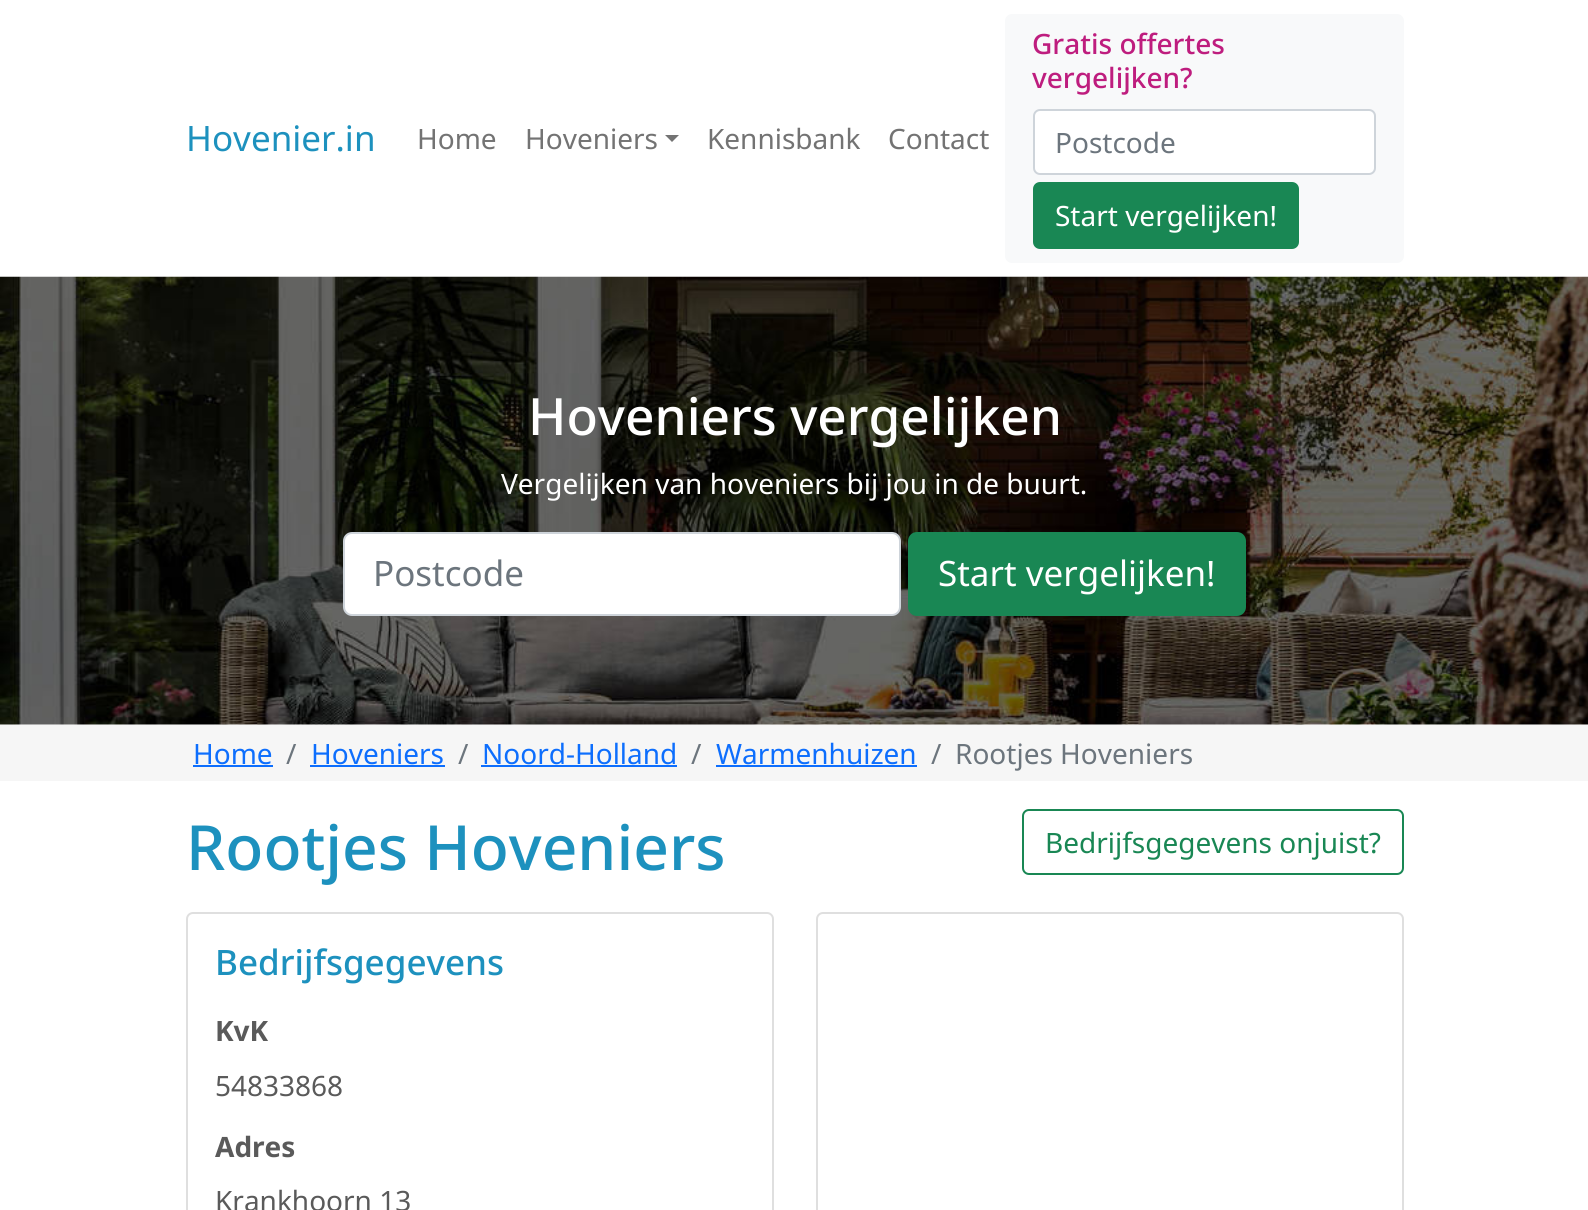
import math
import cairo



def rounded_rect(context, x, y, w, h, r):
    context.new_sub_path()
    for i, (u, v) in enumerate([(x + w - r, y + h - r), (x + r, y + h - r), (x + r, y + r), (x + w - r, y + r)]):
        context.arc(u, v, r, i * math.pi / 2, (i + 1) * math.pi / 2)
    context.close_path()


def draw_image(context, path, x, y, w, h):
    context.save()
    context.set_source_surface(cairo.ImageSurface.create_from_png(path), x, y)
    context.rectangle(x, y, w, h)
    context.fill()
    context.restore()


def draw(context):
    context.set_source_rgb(1, 1, 1)
    context.paint()
    context.set_source_rgb(115 / 255, 115 / 255, 115 / 255)
    context.new_path()
    context.move_to(665, 135)
    context.line_to(679, 135)
    context.line_to(672, 142)
    context.close_path()
    context.fill()
    context.set_source_rgb(248 / 255, 249 / 255, 250 / 255)
    rounded_rect(context, 1005, 14, 399, 249, 7)
    context.fill()
    context.set_source_rgb(1, 1, 1)
    rounded_rect(context, 1034, 110, 341, 64, 6)
    context.fill_preserve()
    context.set_source_rgb(206 / 255, 212 / 255, 218 / 255)
    context.stroke()
    context.set_source_rgb(25 / 255, 135 / 255, 84 / 255)
    rounded_rect(context, 1034, 183, 264, 65, 6)
    context.fill_preserve()
    context.stroke()
    draw_image(context, "images/1.png", 0, 276, 1588, 449)
    context.set_source_rgb(1, 1, 1)
    rounded_rect(context, 344, 533, 556, 82, 8)
    context.fill_preserve()
    context.set_source_rgb(206 / 255, 212 / 255, 218 / 255)
    context.stroke()
    context.set_source_rgb(25 / 255, 135 / 255, 84 / 255)
    rounded_rect(context, 909, 533, 336, 82, 8)
    context.fill_preserve()
    context.stroke()
    context.set_source_rgb(246 / 255, 246 / 255, 246 / 255)
    context.rectangle(0, 725, 1588, 56)
    context.fill()
    context.set_source_rgb(13 / 255, 110 / 255, 253 / 255)
    context.rectangle(193, 765, 80, 2)
    context.fill()
    context.rectangle(310, 765, 135, 2)
    context.fill()
    context.rectangle(481, 765, 196, 2)
    context.fill()
    context.rectangle(716, 765, 201, 2)
    context.fill()
    rounded_rect(context, 1023, 810, 380, 64, 6)
    context.set_source_rgb(25 / 255, 135 / 255, 84 / 255)
    context.stroke()
    rounded_rect(context, 187, 913, 586, 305, 6)
    context.set_source_rgb(223 / 255, 223 / 255, 223 / 255)
    context.stroke()
    rounded_rect(context, 817, 913, 586, 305, 6)
    context.stroke()
    context.select_font_face("Noto Sans")
    context.set_font_size(35)
    context.set_source_rgb(29 / 255, 145 / 255, 190 / 255)
    context.move_to(186, 151)
    context.show_text("Hovenier.in")
    context.set_font_size(28)
    context.set_source_rgb(115 / 255, 115 / 255, 115 / 255)
    context.move_to(417, 149)
    context.show_text("Home")
    context.move_to(525, 149)
    context.show_text("Hoveniers")
    context.move_to(707, 149)
    context.show_text("Kennisbank")
    context.move_to(888, 149)
    context.show_text("Contact")
    context.select_font_face("Noto Sans Medium")
    context.set_source_rgb(190 / 255, 29 / 255, 126 / 255)
    context.move_to(1032, 54)
    context.show_text("Gratis offertes")
    context.move_to(1032, 88)
    context.show_text("vergelijken?")
    context.select_font_face("Noto Sans")
    context.set_source_rgb(108 / 255, 117 / 255, 125 / 255)
    context.move_to(1055, 153)
    context.show_text("Postcode")
    context.set_source_rgb(1, 1, 1)
    context.move_to(1055, 226)
    context.show_text("Start vergelijken!")
    context.select_font_face("Noto Sans Medium")
    context.set_font_size(51.4)
    context.move_to(528, 435)
    context.show_text("Hoveniers vergelijken")
    context.select_font_face("Noto Sans")
    context.set_font_size(28)
    context.move_to(501, 494)
    context.show_text("Vergelijken van hoveniers bij jou in de buurt.")
    context.set_font_size(35)
    context.set_source_rgb(108 / 255, 117 / 255, 125 / 255)
    context.move_to(373, 586)
    context.show_text("Postcode")
    context.set_source_rgb(1, 1, 1)
    context.move_to(938, 586)
    context.show_text("Start vergelijken!")
    context.set_font_size(28)
    context.set_source_rgb(13 / 255, 110 / 255, 253 / 255)
    context.move_to(193, 764)
    context.show_text("Home")
    context.set_source_rgb(108 / 255, 117 / 255, 125 / 255)
    context.move_to(286, 764)
    context.show_text("/")
    context.set_source_rgb(13 / 255, 110 / 255, 253 / 255)
    context.move_to(311, 764)
    context.show_text("Hoveniers")
    context.set_source_rgb(108 / 255, 117 / 255, 125 / 255)
    context.move_to(458, 764)
    context.show_text("/")
    context.set_source_rgb(13 / 255, 110 / 255, 253 / 255)
    context.move_to(482, 764)
    context.show_text("Noord-Holland")
    context.set_source_rgb(108 / 255, 117 / 255, 125 / 255)
    context.move_to(691, 764)
    context.show_text("/")
    context.set_source_rgb(13 / 255, 110 / 255, 253 / 255)
    context.move_to(716, 764)
    context.show_text("Warmenhuizen")
    context.set_source_rgb(108 / 255, 117 / 255, 125 / 255)
    context.move_to(931, 764)
    context.show_text("/")
    context.move_to(955, 764)
    context.show_text("Rootjes Hoveniers")
    context.select_font_face("Noto Sans Medium")
    context.set_font_size(62.25)
    context.set_source_rgb(29 / 255, 145 / 255, 190 / 255)
    context.move_to(186, 870)
    context.show_text("Rootjes Hoveniers")
    context.select_font_face("Noto Sans")
    context.set_font_size(28)
    context.set_source_rgb(25 / 255, 135 / 255, 84 / 255)
    context.move_to(1045, 853)
    context.show_text("Bedrijfsgegevens onjuist?")
    context.select_font_face("Noto Sans Medium")
    context.set_font_size(35)
    context.set_source_rgb(29 / 255, 145 / 255, 190 / 255)
    context.move_to(215, 975)
    context.show_text("Bedrijfsgegevens")
    context.select_font_face("Noto Sans", cairo.FontSlant.NORMAL, cairo.FontWeight.BOLD)
    context.set_font_size(28)
    context.set_source_rgb(90 / 255, 90 / 255, 90 / 255)
    context.move_to(215, 1041)
    context.show_text("KvK")
    context.select_font_face("Noto Sans")
    context.move_to(215, 1096)
    context.show_text("54833868")
    context.select_font_face("Noto Sans", cairo.FontSlant.NORMAL, cairo.FontWeight.BOLD)
    context.move_to(215, 1157)
    context.show_text("Adres")
    context.select_font_face("Noto Sans")
    context.move_to(215, 1211)
    context.show_text("Krankhoorn 13")


surface = cairo.ImageSurface(cairo.Format.RGB24, 1588, 1210)
context = cairo.Context(surface)
options = cairo.FontOptions()
options.set_hint_metrics(cairo.HintMetrics.OFF)
options.set_hint_style(cairo.HintStyle.NONE)
context.set_font_options(options)
context.set_miter_limit(4)
draw(context)
surface.write_to_png("out.png")
